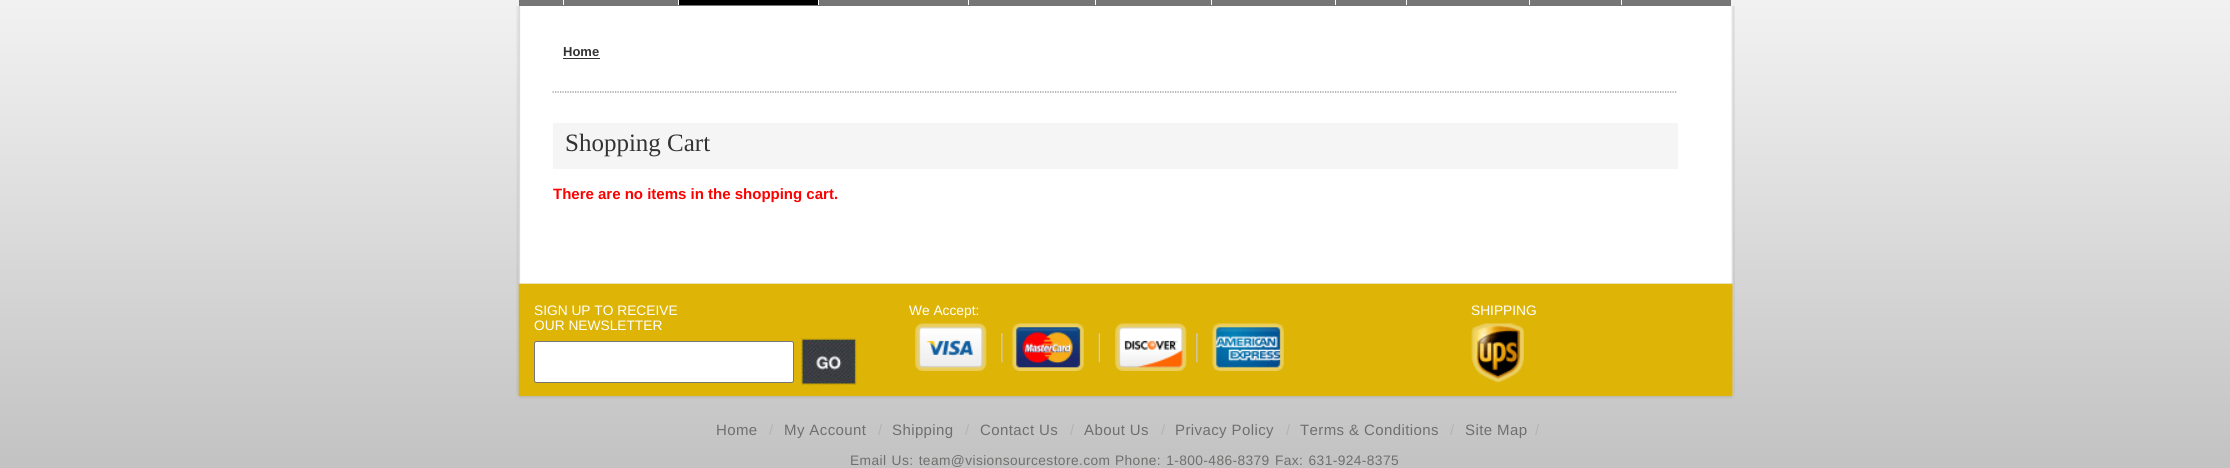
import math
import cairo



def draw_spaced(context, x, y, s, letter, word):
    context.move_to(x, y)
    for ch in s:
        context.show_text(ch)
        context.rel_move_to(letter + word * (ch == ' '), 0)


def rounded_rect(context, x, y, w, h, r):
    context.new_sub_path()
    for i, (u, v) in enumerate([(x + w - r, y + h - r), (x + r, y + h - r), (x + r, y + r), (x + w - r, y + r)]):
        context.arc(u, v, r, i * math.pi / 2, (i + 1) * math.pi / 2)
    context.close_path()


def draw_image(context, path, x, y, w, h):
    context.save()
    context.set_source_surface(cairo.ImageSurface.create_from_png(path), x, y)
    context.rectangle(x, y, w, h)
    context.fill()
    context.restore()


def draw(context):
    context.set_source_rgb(1, 1, 1)
    context.paint()
    draw_image(context, "images/1.png", 0, 0, 2230, 468)
    context.set_source_rgb(118 / 255, 118 / 255, 118 / 255)
    context.rectangle(519, 0, 1212, 6)
    context.fill()
    context.set_source_rgb(1, 1, 1)
    context.rectangle(563, 0, 1, 5)
    context.fill()
    context.set_source_rgb(0, 0, 0)
    context.rectangle(678, 0, 140, 5)
    context.fill()
    context.set_source_rgb(1, 1, 1)
    context.rectangle(678, 0, 1, 5)
    context.fill()
    context.rectangle(818, 0, 1, 5)
    context.fill()
    context.rectangle(968, 0, 1, 5)
    context.fill()
    context.rectangle(1095, 0, 1, 5)
    context.fill()
    context.rectangle(1211, 0, 1, 5)
    context.fill()
    context.rectangle(1335, 0, 1, 5)
    context.fill()
    context.rectangle(1406, 0, 1, 5)
    context.fill()
    context.rectangle(1529, 0, 1, 5)
    context.fill()
    context.rectangle(1621, 0, 1, 5)
    context.fill()
    draw_image(context, "images/3.png", 516, 283, 1219, 116)
    draw_image(context, "images/2.png", 516, 6, 1219, 278)
    context.set_source_rgb(51 / 255, 51 / 255, 51 / 255)
    context.rectangle(563, 58, 37, 1)
    context.fill()
    context.new_path()
    context.move_to(552.5, 92)
    context.line_to(1677.5, 92)
    context.set_source_rgb(137 / 255, 137 / 255, 137 / 255)
    context.set_line_width(1.2)
    context.set_dash([1.25, 1.25])
    context.stroke()
    context.set_source_rgb(245 / 255, 245 / 255, 245 / 255)
    context.rectangle(553, 123, 1125, 46)
    context.fill()
    context.set_source_rgb(1, 1, 1)
    rounded_rect(context, 534.5, 341.5, 259, 41, 2)
    context.fill_preserve()
    context.set_source_rgb(118 / 255, 118 / 255, 118 / 255)
    context.set_line_width(1)
    context.set_dash([])
    context.stroke()
    draw_image(context, "images/4.png", 801, 338, 56, 47)
    draw_image(context, "images/5.png", 915, 323, 72, 48)
    draw_image(context, "images/6.png", 1001, 333, 2, 30)
    draw_image(context, "images/7.png", 1012, 323, 72, 48)
    draw_image(context, "images/8.png", 1098, 333, 2, 30)
    draw_image(context, "images/9.png", 1115, 323, 72, 48)
    draw_image(context, "images/6.png", 1196, 333, 2, 30)
    draw_image(context, "images/10.png", 1212, 323, 72, 48)
    draw_image(context, "images/11.png", 1471, 323, 53, 60)
    context.select_font_face("Liberation Sans", cairo.FontSlant.NORMAL, cairo.FontWeight.BOLD)
    context.set_font_size(13)
    context.set_source_rgb(51 / 255, 51 / 255, 51 / 255)
    context.move_to(563, 56)
    context.show_text("Home")
    context.select_font_face("Liberation Serif")
    context.set_font_size(25)
    context.move_to(565, 151)
    context.show_text("Shopping Cart")
    context.select_font_face("Liberation Sans", cairo.FontSlant.NORMAL, cairo.FontWeight.BOLD)
    context.set_font_size(15)
    context.set_source_rgb(1, 0, 0)
    context.move_to(553, 199)
    context.show_text("There are no items in the shopping cart.")
    context.select_font_face("Liberation Sans")
    context.set_font_size(13.75)
    context.set_source_rgb(1, 1, 1)
    context.move_to(534, 315)
    context.show_text("SIGN UP TO RECEIVE")
    context.move_to(534, 330)
    context.show_text("OUR NEWSLETTER")
    context.move_to(909, 315)
    context.show_text("We Accept:")
    context.move_to(1471, 315)
    context.show_text("SHIPPING")
    context.set_font_size(15)
    context.set_source_rgb(111 / 255, 111 / 255, 110 / 255)
    draw_spaced(context, 716, 435, "Home", 0.4, 0)
    context.set_source_rgb(179 / 255, 179 / 255, 179 / 255)
    context.move_to(769, 435)
    context.show_text("/")
    context.set_source_rgb(111 / 255, 111 / 255, 110 / 255)
    draw_spaced(context, 784, 435, "My Account", 0.4, 0)
    context.set_source_rgb(179 / 255, 179 / 255, 179 / 255)
    context.move_to(878, 435)
    context.show_text("/")
    context.set_source_rgb(111 / 255, 111 / 255, 110 / 255)
    draw_spaced(context, 892, 435, "Shipping", 0.4, 0)
    context.set_source_rgb(179 / 255, 179 / 255, 179 / 255)
    context.move_to(965, 435)
    context.show_text("/")
    context.set_source_rgb(111 / 255, 111 / 255, 110 / 255)
    draw_spaced(context, 980, 435, "Contact Us", 0.4, 0)
    context.set_source_rgb(179 / 255, 179 / 255, 179 / 255)
    context.move_to(1070, 435)
    context.show_text("/")
    context.set_source_rgb(111 / 255, 111 / 255, 110 / 255)
    draw_spaced(context, 1084, 435, "About Us", 0.4, 0)
    context.set_source_rgb(179 / 255, 179 / 255, 179 / 255)
    context.move_to(1161, 435)
    context.show_text("/")
    context.set_source_rgb(111 / 255, 111 / 255, 110 / 255)
    draw_spaced(context, 1175, 435, "Privacy Policy", 0.4, 0)
    context.set_source_rgb(179 / 255, 179 / 255, 179 / 255)
    context.move_to(1286, 435)
    context.show_text("/")
    context.set_source_rgb(111 / 255, 111 / 255, 110 / 255)
    draw_spaced(context, 1300, 435, "Terms & Conditions", 0.4, 0)
    context.set_source_rgb(179 / 255, 179 / 255, 179 / 255)
    context.move_to(1450, 435)
    context.show_text("/")
    context.set_source_rgb(111 / 255, 111 / 255, 110 / 255)
    draw_spaced(context, 1465, 435, "Site Map", 0.4, 0)
    context.set_source_rgb(179 / 255, 179 / 255, 179 / 255)
    context.move_to(1535, 435)
    context.show_text("/")
    context.set_font_size(13.75)
    context.set_source_rgb(111 / 255, 111 / 255, 110 / 255)
    draw_spaced(context, 850, 465, "Email Us: team@visionsourcestore.com", 0.4, 1)
    draw_spaced(context, 1115, 465, "Phone: 1-800-486-8379", 0.4, 1)
    draw_spaced(context, 1275, 465, "Fax: 631-924-8375", 0.4, 1)


surface = cairo.ImageSurface(cairo.Format.RGB24, 2230, 468)
context = cairo.Context(surface)
options = cairo.FontOptions()
options.set_hint_metrics(cairo.HintMetrics.OFF)
options.set_hint_style(cairo.HintStyle.NONE)
context.set_font_options(options)
context.set_miter_limit(4)
draw(context)
surface.write_to_png("out.png")
